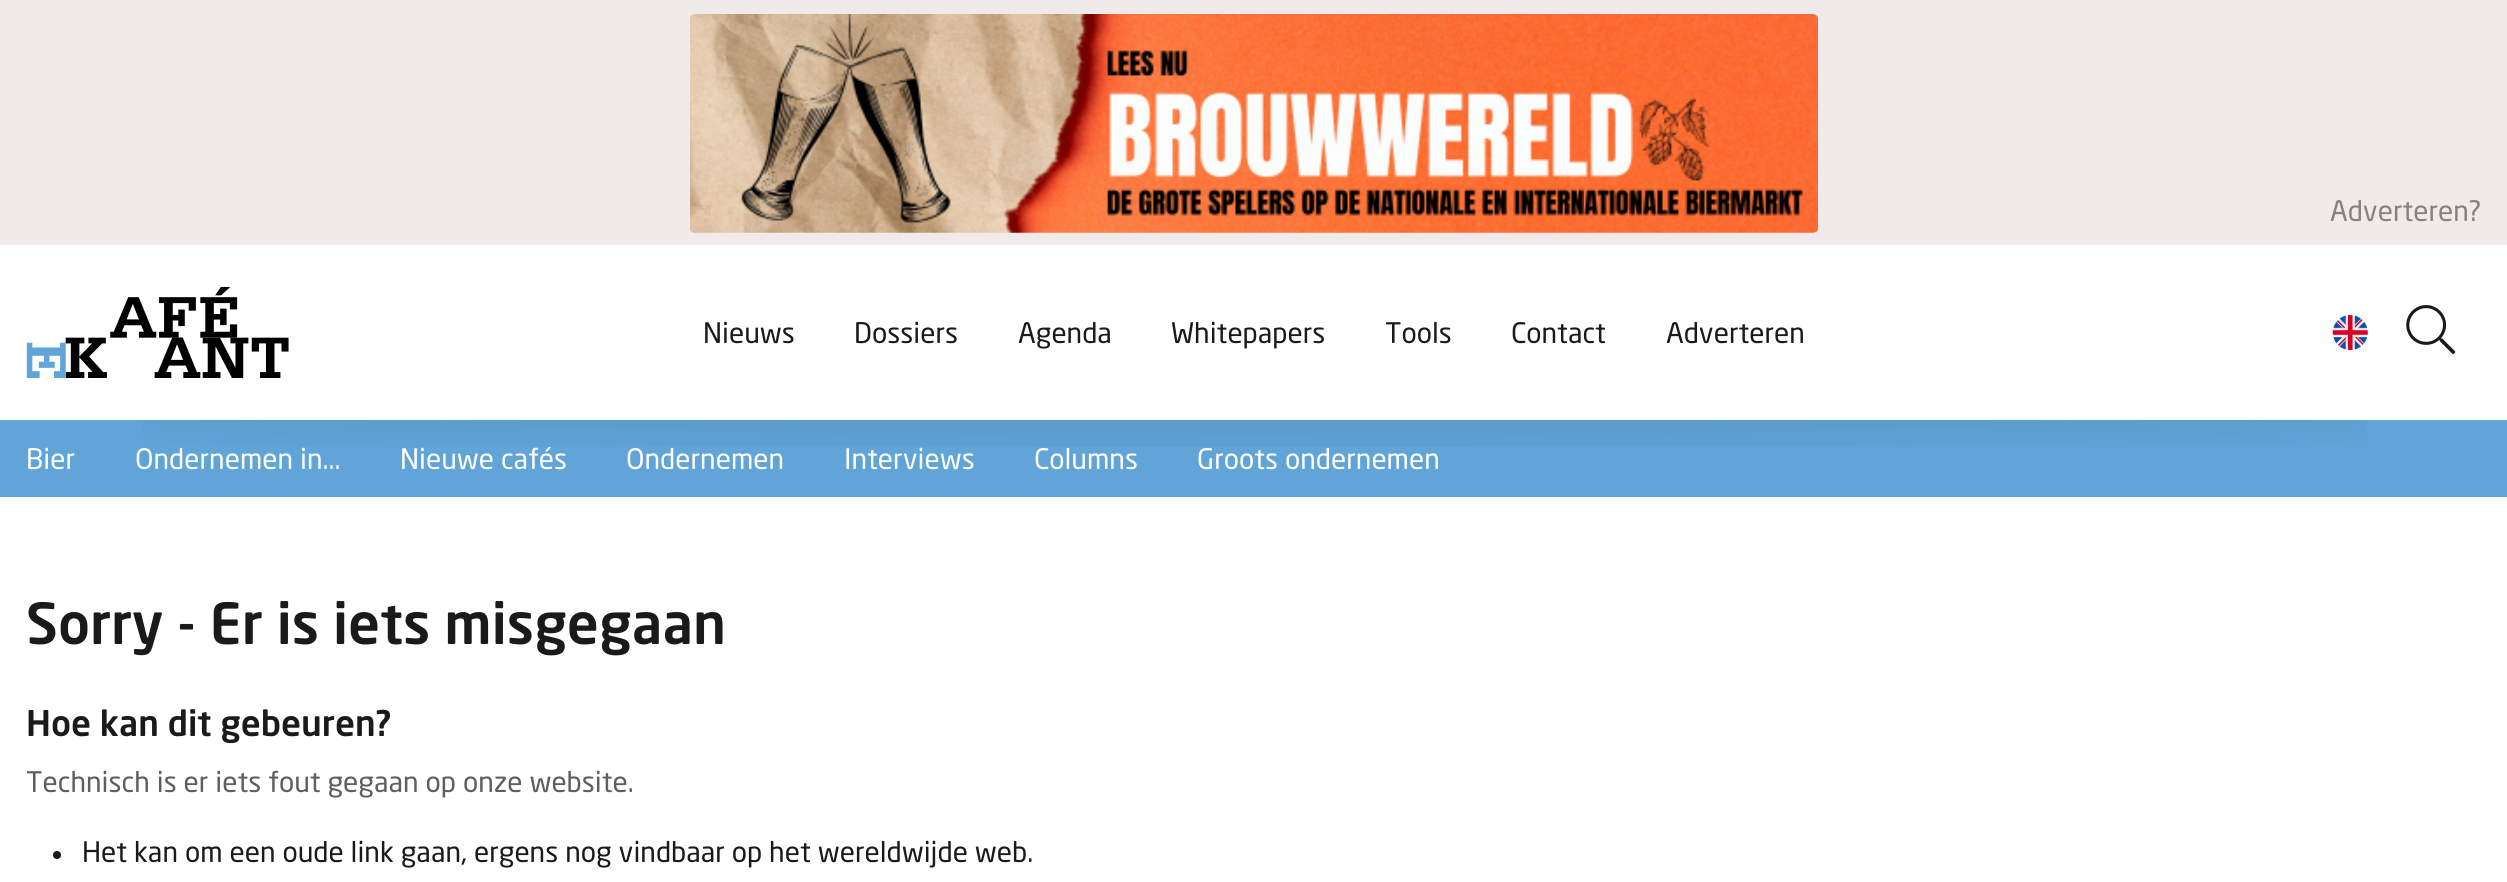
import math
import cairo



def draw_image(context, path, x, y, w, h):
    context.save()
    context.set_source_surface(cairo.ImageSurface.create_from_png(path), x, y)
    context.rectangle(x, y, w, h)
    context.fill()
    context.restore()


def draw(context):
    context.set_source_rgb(1, 1, 1)
    context.paint()
    context.set_source_rgb(240 / 255, 234 / 255, 234 / 255)
    context.rectangle(0, 0, 2507, 245)
    context.fill()
    draw_image(context, "images/1.png", 690, 14, 1128, 219)
    draw_image(context, "images/2.png", 26, 287, 263, 91)
    draw_image(context, "images/3.png", 2332, 315, 36, 35)
    draw_image(context, "images/4.png", 2406, 305, 50, 50)
    context.set_source_rgb(97 / 255, 164 / 255, 215 / 255)
    context.rectangle(0, 420, 2507, 77)
    context.fill()
    draw_image(context, "images/5.png", 143, 420, 2224, 27)
    context.set_source_rgb(27 / 255, 25 / 255, 25 / 255)
    context.arc(57, 855, 4, 0, 2 * math.pi)
    context.fill()
    context.select_font_face("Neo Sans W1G")
    context.set_font_size(28)
    context.set_source_rgb(134 / 255, 130 / 255, 130 / 255)
    context.move_to(2330, 221)
    context.show_text("Adverteren?")
    context.set_source_rgb(27 / 255, 25 / 255, 25 / 255)
    context.move_to(703, 343)
    context.show_text("Nieuws")
    context.move_to(854, 343)
    context.show_text("Dossiers")
    context.move_to(1018, 343)
    context.show_text("Agenda")
    context.move_to(1171, 343)
    context.show_text("Whitepapers")
    context.move_to(1385, 343)
    context.show_text("Tools")
    context.move_to(1511, 343)
    context.show_text("Contact")
    context.move_to(1666, 343)
    context.show_text("Adverteren")
    context.set_source_rgb(1, 1, 1)
    context.move_to(26, 469)
    context.show_text("Bier")
    context.move_to(135, 469)
    context.show_text("Ondernemen in...")
    context.move_to(400, 469)
    context.show_text("Nieuwe cafés")
    context.move_to(626, 469)
    context.show_text("Ondernemen")
    context.move_to(844, 469)
    context.show_text("Interviews")
    context.move_to(1034, 469)
    context.show_text("Columns")
    context.move_to(1197, 469)
    context.show_text("Groots ondernemen")
    context.select_font_face("Neo Sans W1G Medium")
    context.set_font_size(56)
    context.set_source_rgb(27 / 255, 25 / 255, 25 / 255)
    context.move_to(26, 644)
    context.show_text("Sorry - Er is iets misgegaan")
    context.set_font_size(35)
    context.move_to(26, 736)
    context.show_text("Hoe kan dit gebeuren?")
    context.select_font_face("Neo Sans W1G")
    context.set_font_size(28)
    context.set_source_rgb(95 / 255, 94 / 255, 94 / 255)
    context.move_to(26, 792)
    context.show_text("Technisch is er iets fout gegaan op onze website.")
    context.set_source_rgb(27 / 255, 25 / 255, 25 / 255)
    context.move_to(82, 862)
    context.show_text("Het kan om een oude link gaan, ergens nog vindbaar op het wereldwijde web.")


surface = cairo.ImageSurface(cairo.Format.RGB24, 2507, 882)
context = cairo.Context(surface)
options = cairo.FontOptions()
options.set_hint_metrics(cairo.HintMetrics.OFF)
options.set_hint_style(cairo.HintStyle.NONE)
context.set_font_options(options)
context.set_miter_limit(4)
draw(context)
surface.write_to_png("out.png")
